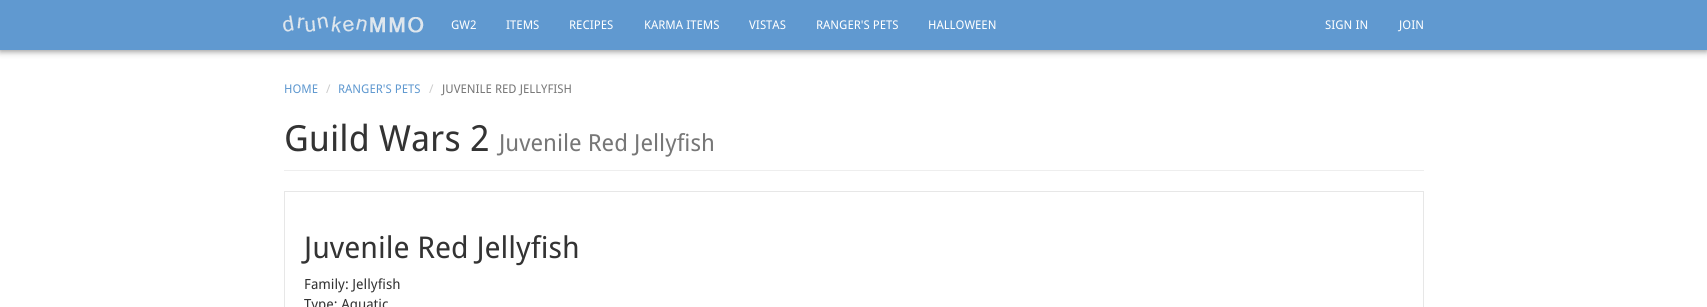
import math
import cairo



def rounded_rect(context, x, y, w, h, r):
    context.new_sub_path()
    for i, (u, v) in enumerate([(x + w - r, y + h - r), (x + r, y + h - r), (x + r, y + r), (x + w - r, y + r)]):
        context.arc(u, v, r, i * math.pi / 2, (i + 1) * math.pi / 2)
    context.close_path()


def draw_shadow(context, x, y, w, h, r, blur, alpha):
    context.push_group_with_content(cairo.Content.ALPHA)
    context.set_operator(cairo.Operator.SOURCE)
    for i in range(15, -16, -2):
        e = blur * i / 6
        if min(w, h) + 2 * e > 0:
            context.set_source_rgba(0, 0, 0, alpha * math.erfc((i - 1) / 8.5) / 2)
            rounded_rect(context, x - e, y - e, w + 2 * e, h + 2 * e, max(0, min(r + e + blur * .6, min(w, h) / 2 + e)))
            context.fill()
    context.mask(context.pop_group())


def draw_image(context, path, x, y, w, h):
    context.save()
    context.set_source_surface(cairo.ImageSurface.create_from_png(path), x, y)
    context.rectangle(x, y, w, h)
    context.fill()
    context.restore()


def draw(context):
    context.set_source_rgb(1, 1, 1)
    context.paint()
    context.set_source_rgb(136 / 255, 136 / 255, 136 / 255)
    draw_shadow(context, 0, 1, 1707, 50, 0, 3.5, 1)
    context.set_source_rgb(96 / 255, 153 / 255, 208 / 255)
    context.rectangle(0, 0, 1707, 50)
    context.fill()
    draw_image(context, "images/1.png", 283, 15, 141, 18)
    context.set_source_rgb(238 / 255, 238 / 255, 238 / 255)
    context.rectangle(284, 170, 1140, 1)
    context.fill()
    context.rectangle(284.5, 191.5, 1139, 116)
    context.set_source_rgb(231 / 255, 231 / 255, 231 / 255)
    context.set_line_width(1)
    context.stroke()
    context.select_font_face("Droid Sans")
    context.set_font_size(12)
    context.set_source_rgb(1, 1, 1)
    context.move_to(451, 29)
    context.show_text("GW2")
    context.move_to(506, 29)
    context.show_text("ITEMS")
    context.move_to(569, 29)
    context.show_text("RECIPES")
    context.move_to(644, 29)
    context.show_text("KARMA ITEMS")
    context.move_to(749, 29)
    context.show_text("VISTAS")
    context.move_to(816, 29)
    context.show_text("RANGER'S PETS")
    context.move_to(928, 29)
    context.show_text("HALLOWEEN")
    context.move_to(1325, 29)
    context.show_text("SIGN IN")
    context.move_to(1399, 29)
    context.show_text("JOIN")
    context.set_source_rgb(96 / 255, 153 / 255, 208 / 255)
    context.move_to(284, 93)
    context.show_text("HOME")
    context.set_source_rgb(204 / 255, 204 / 255, 204 / 255)
    context.move_to(326, 93)
    context.show_text("/")
    context.set_source_rgb(96 / 255, 153 / 255, 208 / 255)
    context.move_to(338, 93)
    context.show_text("RANGER'S PETS")
    context.set_source_rgb(204 / 255, 204 / 255, 204 / 255)
    context.move_to(429, 93)
    context.show_text("/")
    context.set_source_rgb(119 / 255, 119 / 255, 119 / 255)
    context.move_to(442, 93)
    context.show_text("JUVENILE RED JELLYFISH")
    context.set_font_size(36)
    context.set_source_rgb(51 / 255, 51 / 255, 51 / 255)
    context.move_to(284, 151)
    context.show_text("Guild Wars 2")
    context.set_font_size(23.5)
    context.set_source_rgb(119 / 255, 119 / 255, 119 / 255)
    context.move_to(499, 151)
    context.show_text("Juvenile Red Jellyfish")
    context.set_font_size(30)
    context.set_source_rgb(51 / 255, 51 / 255, 51 / 255)
    context.move_to(304, 258)
    context.show_text("Juvenile Red Jellyfish")
    context.set_font_size(14)
    context.move_to(304, 289)
    context.show_text("Family: Jellyfish")
    context.move_to(304, 309)
    context.show_text("Type: Aquatic")


surface = cairo.ImageSurface(cairo.Format.RGB24, 1707, 307)
context = cairo.Context(surface)
options = cairo.FontOptions()
options.set_hint_metrics(cairo.HintMetrics.OFF)
options.set_hint_style(cairo.HintStyle.NONE)
context.set_font_options(options)
context.set_miter_limit(4)
draw(context)
surface.write_to_png("out.png")
